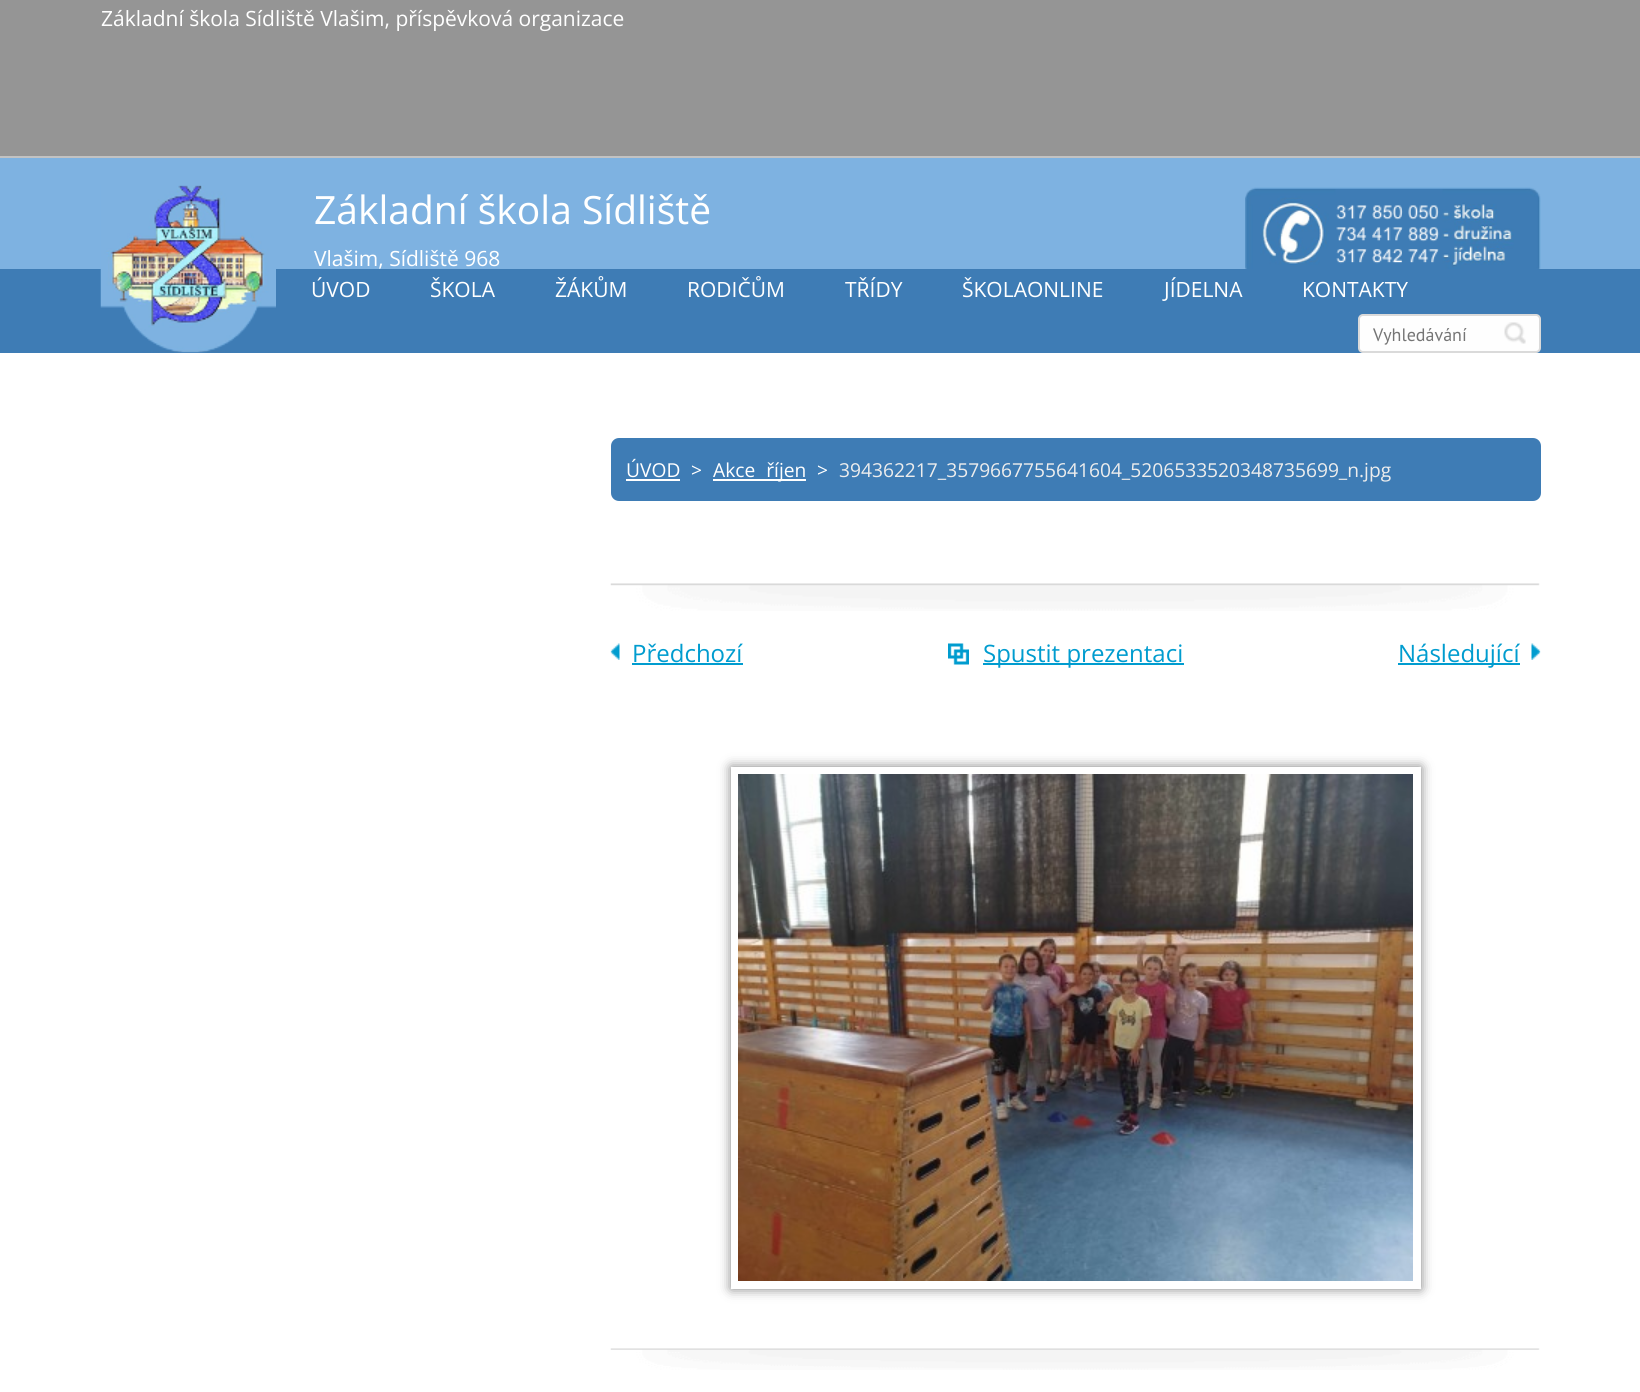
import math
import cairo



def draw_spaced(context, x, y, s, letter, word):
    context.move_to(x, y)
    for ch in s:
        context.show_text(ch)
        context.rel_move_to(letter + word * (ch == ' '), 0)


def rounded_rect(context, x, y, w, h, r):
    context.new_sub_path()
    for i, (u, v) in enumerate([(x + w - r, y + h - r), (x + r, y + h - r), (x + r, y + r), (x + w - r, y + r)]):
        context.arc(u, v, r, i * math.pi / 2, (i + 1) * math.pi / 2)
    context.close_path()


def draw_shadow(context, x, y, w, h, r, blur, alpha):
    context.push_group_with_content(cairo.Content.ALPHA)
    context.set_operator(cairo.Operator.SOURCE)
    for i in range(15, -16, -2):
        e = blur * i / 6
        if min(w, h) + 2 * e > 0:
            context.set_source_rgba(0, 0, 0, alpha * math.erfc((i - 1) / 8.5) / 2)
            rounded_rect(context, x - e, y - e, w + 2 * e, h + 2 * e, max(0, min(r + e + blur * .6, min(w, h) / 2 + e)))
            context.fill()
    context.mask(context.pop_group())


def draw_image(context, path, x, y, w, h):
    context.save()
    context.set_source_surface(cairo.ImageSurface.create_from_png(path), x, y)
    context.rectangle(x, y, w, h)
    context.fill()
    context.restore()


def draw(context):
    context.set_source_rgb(1, 1, 1)
    context.paint()
    context.set_source_rgb(149 / 255, 149 / 255, 149 / 255)
    context.rectangle(0, 0, 1640, 156)
    context.fill()
    context.set_source_rgb(194 / 255, 194 / 255, 194 / 255)
    context.rectangle(0, 156, 1640, 2)
    context.fill()
    context.set_source_rgb(126 / 255, 178 / 255, 225 / 255)
    context.rectangle(0, 158, 1640, 111)
    context.fill()
    context.set_source_rgb(62 / 255, 124 / 255, 181 / 255)
    context.rectangle(0, 269, 1640, 84)
    context.fill()
    draw_image(context, "images/1.png", 100, 185, 176, 168)
    draw_image(context, "images/2.png", 1245, 187, 296, 82)
    context.set_source_rgb(254 / 255, 254 / 255, 254 / 255)
    rounded_rect(context, 1359, 315, 181, 37, 4)
    context.fill_preserve()
    context.set_source_rgb(218 / 255, 218 / 255, 218 / 255)
    context.stroke()
    draw_image(context, "images/3.png", 1504, 322, 22, 22)
    context.set_source_rgb(62 / 255, 124 / 255, 181 / 255)
    rounded_rect(context, 611, 438, 930, 63, 8)
    context.fill()
    context.set_source_rgb(1, 1, 1)
    context.rectangle(626, 479, 54, 2)
    context.fill()
    context.rectangle(713, 479, 93, 2)
    context.fill()
    draw_image(context, "images/4.png", 610, 583, 930, 28)
    draw_image(context, "images/5.png", 610, 643, 10, 17)
    context.set_source_rgb(0, 156 / 255, 207 / 255)
    context.rectangle(632, 663, 111, 2)
    context.fill()
    draw_image(context, "images/6.png", 948, 643, 21, 22)
    context.rectangle(983, 663, 201, 2)
    context.fill()
    draw_image(context, "images/7.png", 1531, 643, 10, 17)
    context.rectangle(1398, 663, 122, 2)
    context.fill()
    draw_image(context, "images/8.png", 610, 1348, 930, 22)
    context.set_source_rgb(0, 0, 0)
    draw_shadow(context, 731, 767, 690, 522, 0, 6, 0.5)
    context.rectangle(735, 771, 682, 514)
    context.set_source_rgb(1, 1, 1)
    context.set_line_width(8)
    context.stroke()
    draw_image(context, "images/9.png", 738, 774, 675, 507)
    context.select_font_face("Open Sans")
    context.set_font_size(21)
    context.move_to(101, 26)
    context.show_text("Základní škola Sídliště Vlašim, příspěvková organizace")
    context.set_font_size(39)
    context.move_to(314, 224)
    context.show_text("Základní škola Sídliště")
    context.set_font_size(21)
    context.move_to(314, 266)
    context.show_text("Vlašim, Sídliště 968")
    context.move_to(311, 297)
    context.show_text("ÚVOD")
    context.move_to(430, 297)
    context.show_text("ŠKOLA")
    context.move_to(555, 297)
    context.show_text("ŽÁKŮM")
    context.move_to(687, 297)
    context.show_text("RODIČŮM")
    context.move_to(845, 297)
    context.show_text("TŘÍDY")
    context.move_to(962, 297)
    context.show_text("ŠKOLAONLINE")
    context.move_to(1164, 297)
    context.show_text("JÍDELNA")
    context.move_to(1302, 297)
    context.show_text("KONTAKTY")
    context.select_font_face("PT Sans")
    context.set_font_size(18)
    context.set_source_rgb(117 / 255, 117 / 255, 117 / 255)
    context.move_to(1373, 341)
    context.show_text("Vyhledávání")
    context.select_font_face("Open Sans")
    context.set_font_size(19.2)
    context.set_source_rgb(1, 1, 1)
    context.move_to(626, 477)
    context.show_text("ÚVOD")
    context.move_to(691, 477)
    context.show_text(">")
    draw_spaced(context, 713, 477, "Akce říjen", 0, 6)
    context.move_to(817, 477)
    context.show_text(">")
    context.set_source_rgb(237 / 255, 237 / 255, 237 / 255)
    context.move_to(839, 477)
    context.show_text("394362217_3579667755641604_5206533520348735699_n.jpg")
    context.set_font_size(24)
    context.set_source_rgb(0, 156 / 255, 207 / 255)
    context.move_to(632, 662)
    context.show_text("Předchozí")
    context.move_to(983, 662)
    context.show_text("Spustit prezentaci")
    context.move_to(1398, 662)
    context.show_text("Následující")


surface = cairo.ImageSurface(cairo.Format.RGB24, 1640, 1392)
context = cairo.Context(surface)
options = cairo.FontOptions()
options.set_hint_metrics(cairo.HintMetrics.OFF)
options.set_hint_style(cairo.HintStyle.NONE)
context.set_font_options(options)
context.set_miter_limit(4)
draw(context)
surface.write_to_png("out.png")
